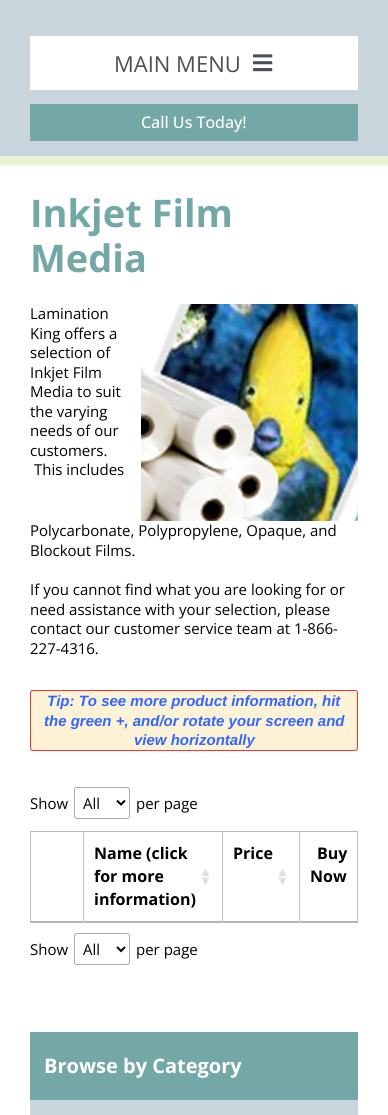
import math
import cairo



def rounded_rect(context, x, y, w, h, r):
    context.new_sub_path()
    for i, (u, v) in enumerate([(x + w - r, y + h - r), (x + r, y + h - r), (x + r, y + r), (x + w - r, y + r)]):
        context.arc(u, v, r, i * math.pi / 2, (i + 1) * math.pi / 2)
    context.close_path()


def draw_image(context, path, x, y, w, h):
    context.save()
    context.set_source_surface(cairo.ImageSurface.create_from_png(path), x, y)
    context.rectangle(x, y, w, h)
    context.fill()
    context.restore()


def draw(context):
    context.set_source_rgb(1, 1, 1)
    context.paint()
    context.set_source_rgb(200 / 255, 213 / 255, 221 / 255)
    context.rectangle(0, 0, 388, 156)
    context.fill()
    context.set_source_rgb(232 / 255, 241 / 255, 210 / 255)
    context.rectangle(0, 156, 388, 9)
    context.fill()
    context.set_source_rgb(1, 1, 1)
    context.rectangle(30, 36, 328, 54)
    context.fill()
    draw_image(context, "images/1.png", 253, 54, 20, 18)
    context.set_source_rgb(116 / 255, 168 / 255, 166 / 255)
    context.rectangle(30, 104, 328, 37)
    context.fill()
    draw_image(context, "images/2.png", 141, 304, 217, 217)
    context.set_source_rgb(252 / 255, 242 / 255, 214 / 255)
    rounded_rect(context, 30.5, 690.5, 327, 60, 2.5)
    context.fill_preserve()
    context.set_source_rgb(1, 50 / 255, 51 / 255)
    context.set_line_width(1)
    context.stroke()
    rounded_rect(context, 74.5, 787.5, 55, 31, 2.5)
    context.set_source_rgb(170 / 255, 170 / 255, 170 / 255)
    context.stroke()
    context.new_path()
    context.move_to(117, 800.5)
    context.line_to(121, 804.5)
    context.line_to(125, 800.5)
    context.set_source_rgb(0, 0, 0)
    context.set_line_width(2)
    context.stroke()
    context.rectangle(30.5, 831.5, 327, 91)
    context.set_source_rgb(186 / 255, 186 / 255, 186 / 255)
    context.set_line_width(1)
    context.stroke()
    context.set_source_rgb(179 / 255, 179 / 255, 179 / 255)
    context.new_path()
    context.move_to(222, 922)
    context.line_to(83, 922)
    context.line_to(84, 921)
    context.line_to(222, 921)
    context.close_path()
    context.fill()
    context.set_source_rgb(191 / 255, 191 / 255, 191 / 255)
    context.new_path()
    context.move_to(83, 922)
    context.line_to(83, 832)
    context.line_to(84, 832)
    context.line_to(84, 921)
    context.close_path()
    context.fill()
    context.set_source_rgb(179 / 255, 179 / 255, 179 / 255)
    context.new_path()
    context.move_to(299, 922)
    context.line_to(222, 922)
    context.line_to(223, 921)
    context.line_to(299, 921)
    context.close_path()
    context.fill()
    context.set_source_rgb(191 / 255, 191 / 255, 191 / 255)
    context.new_path()
    context.move_to(222, 922)
    context.line_to(222, 832)
    context.line_to(223, 832)
    context.line_to(223, 921)
    context.close_path()
    context.fill()
    context.set_source_rgb(179 / 255, 179 / 255, 179 / 255)
    context.new_path()
    context.move_to(357, 922)
    context.line_to(299, 922)
    context.line_to(300, 921)
    context.line_to(357, 921)
    context.close_path()
    context.fill()
    context.set_source_rgb(191 / 255, 191 / 255, 191 / 255)
    context.new_path()
    context.move_to(299, 922)
    context.line_to(299, 832)
    context.line_to(300, 832)
    context.line_to(300, 921)
    context.close_path()
    context.fill()
    context.set_source_rgb(179 / 255, 179 / 255, 179 / 255)
    context.rectangle(31, 921, 52, 1)
    context.fill()
    rounded_rect(context, 74.5, 933.5, 55, 31, 2.5)
    context.set_source_rgb(170 / 255, 170 / 255, 170 / 255)
    context.stroke()
    context.new_path()
    context.move_to(117, 947)
    context.line_to(121, 951)
    context.line_to(125, 947)
    context.set_source_rgb(0, 0, 0)
    context.set_line_width(2)
    context.stroke()
    context.set_source_rgb(200 / 255, 213 / 255, 221 / 255)
    context.rectangle(30, 1100, 328, 15)
    context.fill()
    context.set_source_rgb(116 / 255, 168 / 255, 166 / 255)
    context.rectangle(30, 1032, 328, 68)
    context.fill()
    context.select_font_face("Open Sans")
    context.set_font_size(22)
    context.set_source_rgb(74 / 255, 78 / 255, 87 / 255)
    context.move_to(114, 72)
    context.show_text("MAIN MENU")
    context.select_font_face("Open Sans Medium")
    context.set_font_size(16)
    context.set_source_rgb(1, 1, 1)
    context.move_to(141, 128)
    context.show_text("Call Us Today!")
    context.select_font_face("Open Sans", cairo.FontSlant.NORMAL, cairo.FontWeight.BOLD)
    context.set_font_size(38)
    context.set_source_rgb(116 / 255, 168 / 255, 166 / 255)
    context.move_to(30, 227)
    context.show_text("Inkjet Film")
    context.move_to(30, 272)
    context.show_text("Media")
    context.select_font_face("Open Sans")
    context.set_font_size(15)
    context.set_source_rgb(0, 0, 0)
    context.move_to(30, 319)
    context.show_text("Lamination")
    context.move_to(30, 339)
    context.show_text("King offers a")
    context.move_to(30, 358)
    context.show_text("selection of")
    context.move_to(30, 378)
    context.show_text("Inkjet Film")
    context.move_to(30, 397)
    context.show_text("Media to suit")
    context.move_to(30, 417)
    context.show_text("the varying")
    context.move_to(30, 436)
    context.show_text("needs of our")
    context.move_to(30, 456)
    context.show_text("customers.")
    context.move_to(34, 475)
    context.show_text("This includes")
    context.move_to(30, 536)
    context.show_text("Polycarbonate, Polypropylene, Opaque, and")
    context.move_to(30, 556)
    context.show_text("Blockout Films.")
    context.move_to(30, 595)
    context.show_text("If you cannot find what you are looking for or")
    context.move_to(30, 615)
    context.show_text("need assistance with your selection, please")
    context.move_to(30, 634)
    context.show_text("contact our customer service team at 1-866-")
    context.move_to(30, 654)
    context.show_text("227-4316.")
    context.select_font_face("Liberation Sans", cairo.FontSlant.ITALIC, cairo.FontWeight.BOLD)
    context.set_source_rgb(51 / 255, 102 / 255, 1)
    context.move_to(47, 706)
    context.show_text("Tip: To see more product information, hit")
    context.move_to(44, 726)
    context.show_text("the green +, and/or rotate your screen and")
    context.move_to(134, 745)
    context.show_text("view horizontally")
    context.select_font_face("Open Sans")
    context.set_source_rgb(0, 0, 0)
    context.move_to(30, 809)
    context.show_text("Show")
    context.move_to(83, 809)
    context.show_text("All")
    context.move_to(136, 809)
    context.show_text("per page")
    context.select_font_face("Open Sans", cairo.FontSlant.NORMAL, cairo.FontWeight.BOLD)
    context.set_font_size(16)
    context.move_to(94, 859)
    context.show_text("Name (click")
    context.move_to(94, 882)
    context.show_text("for more")
    context.select_font_face("Liberation Sans", cairo.FontSlant.NORMAL, cairo.FontWeight.BOLD)
    context.set_font_size(13)
    context.set_source_rgb(223 / 255, 223 / 255, 223 / 255)
    context.move_to(199, 876)
    context.show_text("▲")
    context.move_to(199, 885)
    context.show_text("▼")
    context.select_font_face("Open Sans", cairo.FontSlant.NORMAL, cairo.FontWeight.BOLD)
    context.set_font_size(16)
    context.set_source_rgb(0, 0, 0)
    context.move_to(94, 905)
    context.show_text("information)")
    context.move_to(233, 859)
    context.show_text("Price")
    context.select_font_face("Liberation Sans", cairo.FontSlant.NORMAL, cairo.FontWeight.BOLD)
    context.set_font_size(13)
    context.set_source_rgb(223 / 255, 223 / 255, 223 / 255)
    context.move_to(276, 876)
    context.show_text("▲")
    context.move_to(276, 885)
    context.show_text("▼")
    context.select_font_face("Open Sans", cairo.FontSlant.NORMAL, cairo.FontWeight.BOLD)
    context.set_font_size(16)
    context.set_source_rgb(0, 0, 0)
    context.move_to(317, 859)
    context.show_text("Buy")
    context.move_to(310, 882)
    context.show_text("Now")
    context.select_font_face("Open Sans")
    context.set_font_size(15)
    context.move_to(30, 955)
    context.show_text("Show")
    context.move_to(83, 955)
    context.show_text("All")
    context.move_to(136, 955)
    context.show_text("per page")
    context.select_font_face("Open Sans", cairo.FontSlant.NORMAL, cairo.FontWeight.BOLD)
    context.set_font_size(20)
    context.set_source_rgb(1, 1, 1)
    context.move_to(44, 1073)
    context.show_text("Browse by Category")


surface = cairo.ImageSurface(cairo.Format.RGB24, 388, 1115)
context = cairo.Context(surface)
options = cairo.FontOptions()
options.set_hint_metrics(cairo.HintMetrics.OFF)
options.set_hint_style(cairo.HintStyle.NONE)
context.set_font_options(options)
context.set_miter_limit(4)
draw(context)
surface.write_to_png("out.png")
